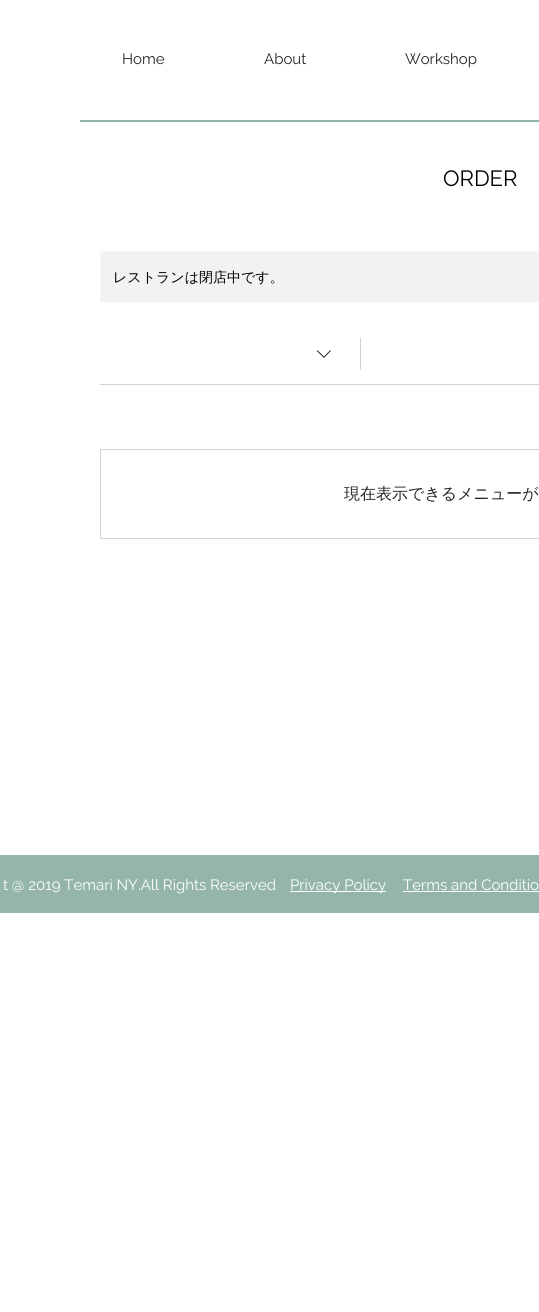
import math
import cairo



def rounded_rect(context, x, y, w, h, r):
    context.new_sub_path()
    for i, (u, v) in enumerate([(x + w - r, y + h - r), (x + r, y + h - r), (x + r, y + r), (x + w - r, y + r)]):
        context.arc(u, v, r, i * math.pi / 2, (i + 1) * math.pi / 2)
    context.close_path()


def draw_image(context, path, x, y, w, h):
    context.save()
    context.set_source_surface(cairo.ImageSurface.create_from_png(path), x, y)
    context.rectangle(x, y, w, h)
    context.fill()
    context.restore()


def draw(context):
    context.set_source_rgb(1, 1, 1)
    context.paint()
    context.set_source_rgb(149 / 255, 181 / 255, 172 / 255)
    context.rectangle(80, 120, 459, 2)
    context.fill()
    context.set_source_rgb(242 / 255, 242 / 255, 242 / 255)
    rounded_rect(context, 100.5, 251.5, 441, 51, 1.5)
    context.fill_preserve()
    context.set_source_rgb(247 / 255, 247 / 255, 247 / 255)
    context.set_line_width(1)
    context.stroke()
    context.set_source_rgb(212 / 255, 211 / 255, 211 / 255)
    context.rectangle(100, 384, 439, 1)
    context.fill()
    draw_image(context, "images/1.png", 316, 350, 15, 8)
    context.rectangle(360, 338, 1, 32)
    context.fill()
    context.rectangle(100.5, 449.5, 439, 89)
    context.stroke()
    context.set_source_rgb(149 / 255, 181 / 255, 172 / 255)
    context.rectangle(0, 855, 539, 58)
    context.fill()
    context.set_source_rgb(1, 1, 1)
    context.rectangle(290, 891, 96, 1)
    context.fill()
    context.rectangle(403, 891, 136, 1)
    context.fill()
    context.select_font_face("Raleway")
    context.set_font_size(15)
    context.set_source_rgb(41 / 255, 35 / 255, 37 / 255)
    context.move_to(122, 64)
    context.show_text("Home")
    context.move_to(264, 64)
    context.show_text("About")
    context.move_to(405, 64)
    context.show_text("Workshop")
    context.set_font_size(22)
    context.set_source_rgb(0, 0, 0)
    context.move_to(443, 186)
    context.show_text("ORDER")
    context.select_font_face("WenQuanYi Zen Hei Medium")
    context.set_font_size(14)
    context.move_to(113, 282)
    context.show_text("レストランは閉店中です。")
    context.set_font_size(16)
    context.set_source_rgb(41 / 255, 35 / 255, 37 / 255)
    context.move_to(344, 499)
    context.show_text("現在表示できるメニューが")
    context.select_font_face("Raleway")
    context.set_font_size(15)
    context.set_source_rgb(1, 1, 1)
    context.move_to(3, 890)
    context.show_text("t @ 2019 Temari NY.All Rights Reserved")
    context.move_to(290, 890)
    context.show_text("Privacy Policy")
    context.move_to(403, 890)
    context.show_text("Terms and Conditio")


surface = cairo.ImageSurface(cairo.Format.RGB24, 539, 1312)
context = cairo.Context(surface)
options = cairo.FontOptions()
options.set_hint_metrics(cairo.HintMetrics.OFF)
options.set_hint_style(cairo.HintStyle.NONE)
context.set_font_options(options)
context.set_miter_limit(4)
draw(context)
surface.write_to_png("out.png")
